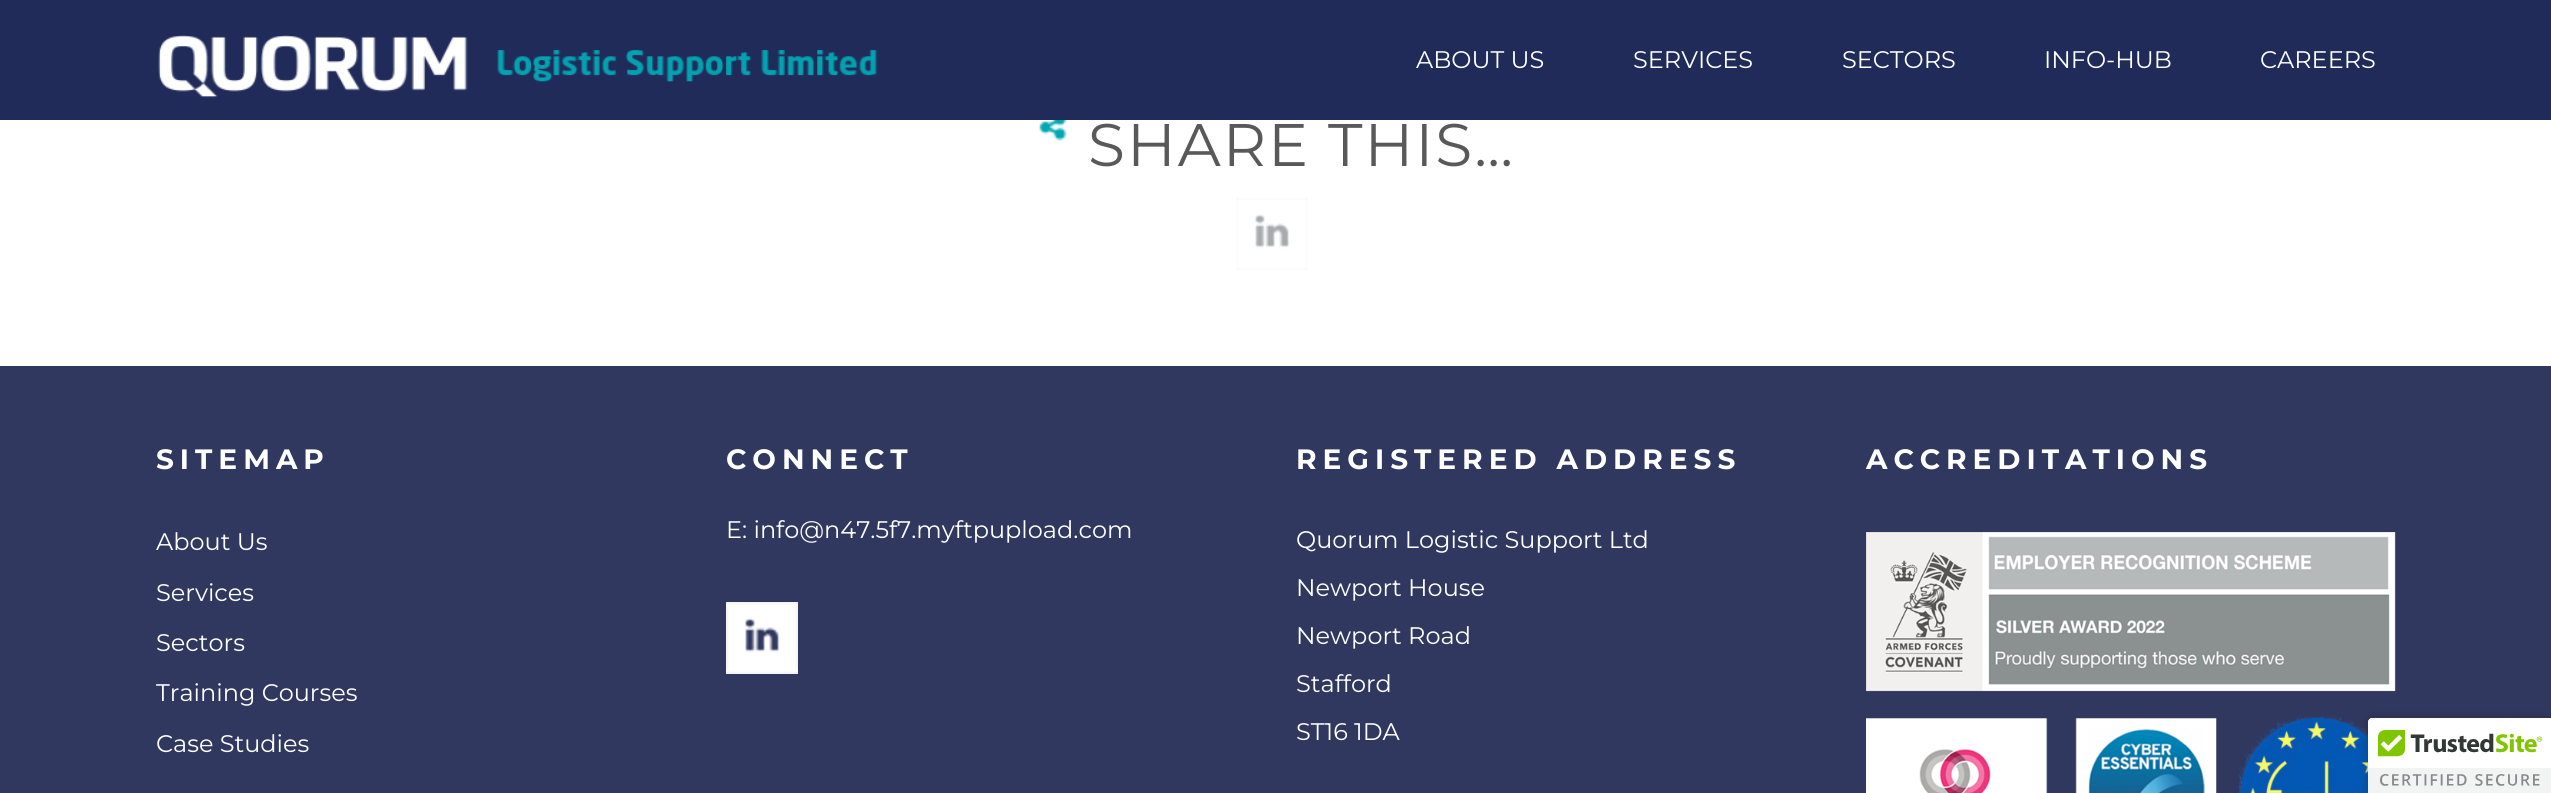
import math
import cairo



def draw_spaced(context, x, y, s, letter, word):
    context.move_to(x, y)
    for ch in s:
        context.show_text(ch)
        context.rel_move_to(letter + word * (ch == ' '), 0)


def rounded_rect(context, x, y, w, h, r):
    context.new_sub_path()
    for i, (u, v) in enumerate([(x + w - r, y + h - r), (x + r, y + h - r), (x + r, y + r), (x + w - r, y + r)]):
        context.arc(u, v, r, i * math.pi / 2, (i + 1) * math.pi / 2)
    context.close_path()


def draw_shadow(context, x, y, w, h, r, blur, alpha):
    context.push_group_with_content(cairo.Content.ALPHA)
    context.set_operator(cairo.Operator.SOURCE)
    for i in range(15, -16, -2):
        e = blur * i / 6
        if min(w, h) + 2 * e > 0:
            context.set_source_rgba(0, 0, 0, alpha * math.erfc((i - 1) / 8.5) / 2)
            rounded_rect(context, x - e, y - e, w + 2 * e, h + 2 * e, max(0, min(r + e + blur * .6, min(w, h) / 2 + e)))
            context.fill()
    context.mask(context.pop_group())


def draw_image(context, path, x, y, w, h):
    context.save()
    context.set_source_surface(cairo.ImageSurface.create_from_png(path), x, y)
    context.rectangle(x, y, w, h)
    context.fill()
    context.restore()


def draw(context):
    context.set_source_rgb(1, 1, 1)
    context.paint()
    context.set_source_rgb(32 / 255, 43 / 255, 89 / 255)
    context.rectangle(0, 0, 2551, 120)
    context.fill()
    draw_image(context, "images/1.png", 158, 35, 720, 63)
    draw_image(context, "images/2.png", 1039, 120, 28, 21)
    context.set_source_rgb(167 / 255, 169 / 255, 172 / 255)
    context.rectangle(1236, 198, 72, 72)
    context.fill()
    draw_image(context, "images/3.png", 1236, 198, 72, 72)
    context.set_source_rgb(48 / 255, 56 / 255, 95 / 255)
    context.rectangle(0, 366, 2551, 427)
    context.fill()
    draw_image(context, "images/4.png", 726, 602, 72, 72)
    draw_image(context, "images/5.png", 1866, 532, 530, 261)
    context.set_source_rgb(0, 0, 0)
    draw_shadow(context, 2368, 718, 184, 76, 4, 5, 0.2)
    context.set_source_rgb(1, 1, 1)
    context.new_path()
    context.move_to(2372, 718)
    context.line_to(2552, 718)
    context.line_to(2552, 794)
    context.line_to(2368, 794)
    context.line_to(2368, 722)
    context.curve_to(2368, 720, 2370, 718, 2372, 718)
    context.close_path()
    context.fill()
    draw_image(context, "images/6.png", 2368, 718, 183, 75)
    context.select_font_face("Montserrat Thin")
    context.set_font_size(24)
    context.move_to(1416, 68)
    context.show_text("ABOUT US")
    context.move_to(1633, 68)
    context.show_text("SERVICES")
    context.move_to(1842, 68)
    context.show_text("SECTORS")
    context.move_to(2044, 68)
    context.show_text("INFO-HUB")
    context.move_to(2260, 68)
    context.show_text("CAREERS")
    context.set_font_size(60)
    context.set_source_rgb(89 / 255, 89 / 255, 89 / 255)
    draw_spaced(context, 1088, 166, "SHARE THIS…", 2, 0)
    context.select_font_face("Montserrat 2 Thin")
    context.set_font_size(28)
    context.set_source_rgb(1, 1, 1)
    draw_spaced(context, 156, 469, "SITEMAP", 6, 0)
    context.select_font_face("Montserrat Thin")
    context.set_font_size(24)
    context.move_to(156, 550)
    context.show_text("About Us")
    context.move_to(156, 601)
    context.show_text("Services")
    context.move_to(156, 651)
    context.show_text("Sectors")
    context.move_to(156, 701)
    context.show_text("Training Courses")
    context.move_to(156, 752)
    context.show_text("Case Studies")
    context.select_font_face("Montserrat 2 Thin")
    context.set_font_size(28)
    draw_spaced(context, 726, 469, "CONNECT", 6, 0)
    context.select_font_face("Montserrat Thin")
    context.set_font_size(24)
    context.move_to(726, 538)
    context.show_text("E: info@n47.5f7.myftpupload.com")
    context.select_font_face("Montserrat 2 Thin")
    context.set_font_size(28)
    draw_spaced(context, 1296, 469, "REGISTERED ADDRESS", 6, 0)
    context.select_font_face("Montserrat Thin")
    context.set_font_size(24)
    context.move_to(1296, 548)
    context.show_text("Quorum Logistic Support Ltd")
    context.move_to(1296, 596)
    context.show_text("Newport House")
    context.move_to(1296, 644)
    context.show_text("Newport Road")
    context.move_to(1296, 692)
    context.show_text("Stafford")
    context.move_to(1296, 740)
    context.show_text("ST16 1DA")
    context.select_font_face("Montserrat 2 Thin")
    context.set_font_size(28)
    draw_spaced(context, 1866, 469, "ACCREDITATIONS", 6, 0)


surface = cairo.ImageSurface(cairo.Format.RGB24, 2551, 793)
context = cairo.Context(surface)
options = cairo.FontOptions()
options.set_hint_metrics(cairo.HintMetrics.OFF)
options.set_hint_style(cairo.HintStyle.NONE)
context.set_font_options(options)
context.set_miter_limit(4)
draw(context)
surface.write_to_png("out.png")
